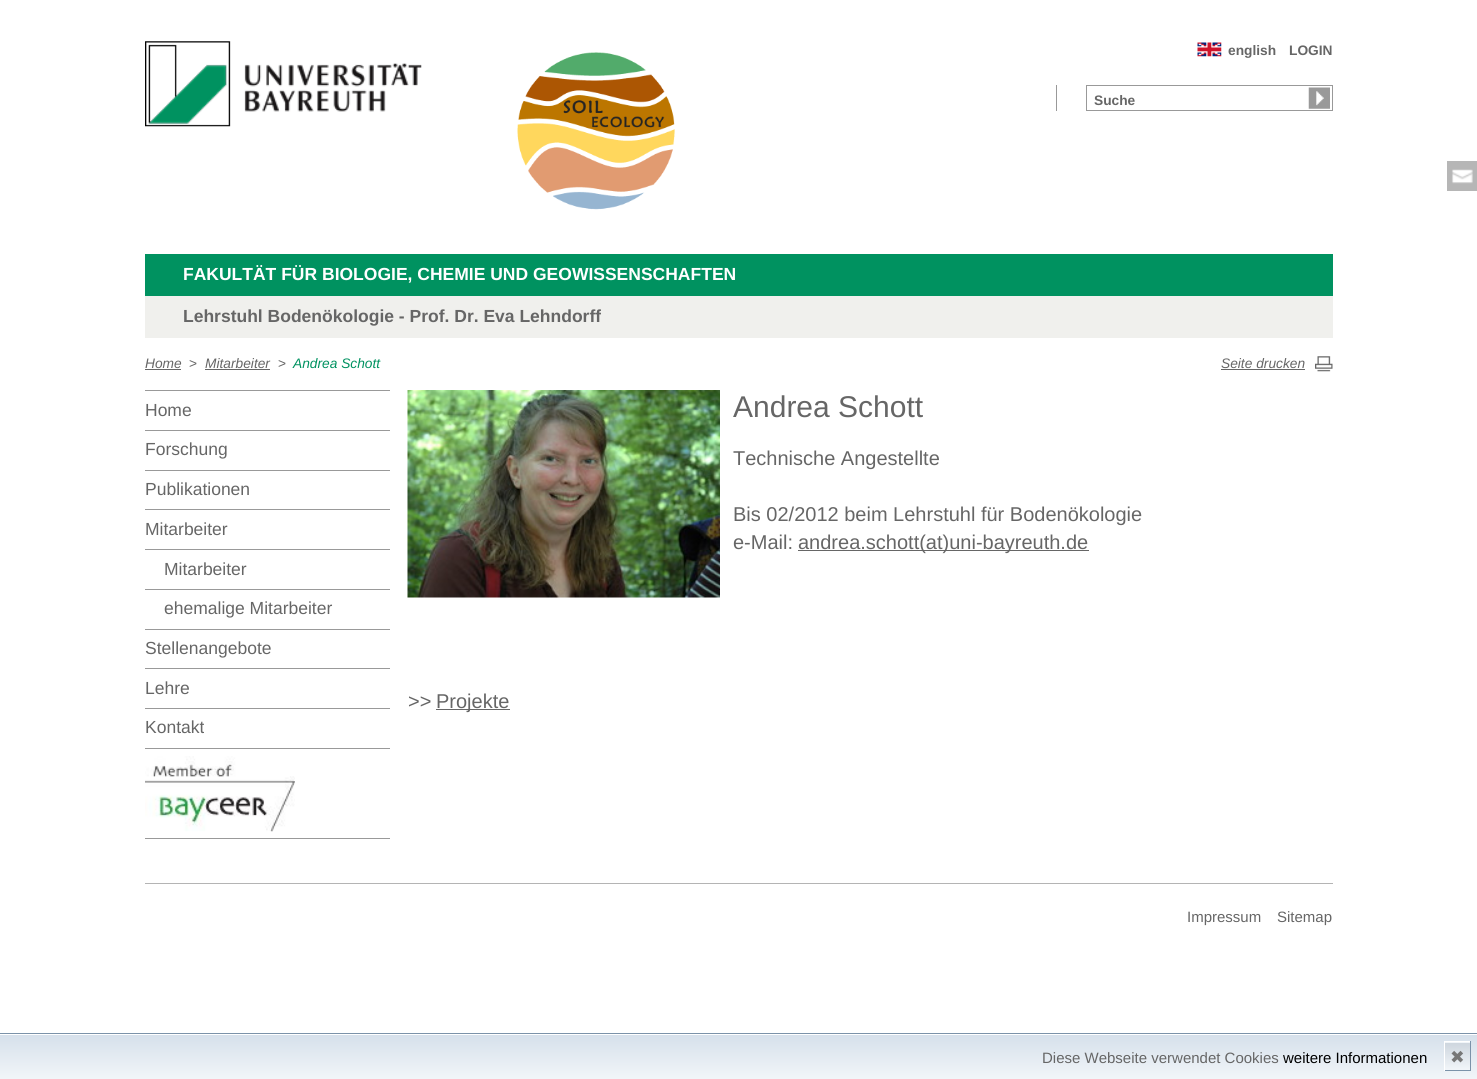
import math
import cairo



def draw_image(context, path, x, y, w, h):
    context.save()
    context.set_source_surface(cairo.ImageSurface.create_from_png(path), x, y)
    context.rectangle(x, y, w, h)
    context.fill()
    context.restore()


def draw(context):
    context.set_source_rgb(1, 1, 1)
    context.paint()
    draw_image(context, "images/1.png", 145, 41, 277, 86)
    draw_image(context, "images/2.png", 517, 52, 158, 158)
    context.set_source_rgb(153 / 255, 153 / 255, 153 / 255)
    context.rectangle(1056, 85, 1, 26)
    context.fill()
    context.rectangle(1086.5, 85.5, 246, 25)
    context.set_line_width(1)
    context.stroke()
    draw_image(context, "images/3.png", 1308, 87, 22, 22)
    draw_image(context, "images/4.png", 1197, 42, 25, 15)
    context.set_source_rgb(0, 146 / 255, 96 / 255)
    context.rectangle(145, 254, 1188, 42)
    context.fill()
    context.set_source_rgb(240 / 255, 240 / 255, 237 / 255)
    context.rectangle(145, 296, 1188, 42)
    context.fill()
    context.set_source_rgb(102 / 255, 102 / 255, 102 / 255)
    context.rectangle(145, 369, 36, 1)
    context.fill()
    context.rectangle(205, 369, 65, 1)
    context.fill()
    draw_image(context, "images/5.png", 1315, 356, 18, 16)
    context.rectangle(1221, 369, 84, 1)
    context.fill()
    context.set_source_rgb(182 / 255, 182 / 255, 182 / 255)
    context.rectangle(1473, 161, 4, 30)
    context.fill()
    draw_image(context, "images/6.png", 1447, 161, 26, 30)
    context.set_source_rgb(153 / 255, 153 / 255, 153 / 255)
    context.rectangle(145, 838, 245, 1)
    context.fill()
    context.rectangle(145, 390, 245, 1)
    context.fill()
    context.rectangle(145, 430, 245, 1)
    context.fill()
    context.rectangle(145, 470, 245, 1)
    context.fill()
    context.rectangle(145, 509, 245, 1)
    context.fill()
    context.rectangle(145, 549, 245, 1)
    context.fill()
    context.rectangle(145, 589, 245, 1)
    context.fill()
    context.rectangle(145, 629, 245, 1)
    context.fill()
    context.rectangle(145, 668, 245, 1)
    context.fill()
    context.rectangle(145, 708, 245, 1)
    context.fill()
    context.rectangle(145, 748, 245, 1)
    context.fill()
    draw_image(context, "images/7.png", 145, 756, 150, 76)
    draw_image(context, "images/8.png", 407, 390, 313, 208)
    context.set_source_rgb(102 / 255, 102 / 255, 102 / 255)
    context.rectangle(798, 550, 291, 1)
    context.fill()
    context.rectangle(436, 709, 74, 1)
    context.fill()
    context.set_source_rgb(180 / 255, 180 / 255, 180 / 255)
    context.rectangle(145, 883, 1188, 1)
    context.fill()
    gradient = cairo.LinearGradient(739, 1035, 739, 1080)
    gradient.add_color_stop_rgba(0, 214 / 255, 224 / 255, 235 / 255, 1)
    gradient.add_color_stop_rgba(1, 242 / 255, 246 / 255, 249 / 255, 1)
    context.set_source(gradient)
    context.rectangle(0, 1035, 1477, 44)
    context.fill()
    context.rectangle(-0.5, 1033.5, 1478, 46)
    context.set_source_rgb(123 / 255, 146 / 255, 169 / 255)
    context.stroke()
    gradient = cairo.LinearGradient(1458, 1015, 1458, 1043)
    gradient.add_color_stop_rgba(0, 206 / 255, 214 / 255, 223 / 255, 1)
    gradient.add_color_stop_rgba(1, 242 / 255, 246 / 255, 249 / 255, 1)
    context.set_source(gradient)
    context.rectangle(1444, 1042, 27, 1)
    context.fill()
    gradient = cairo.LinearGradient(1458, 1043, 1458, 1070)
    gradient.add_color_stop_rgba(0, 206 / 255, 214 / 255, 223 / 255, 1)
    gradient.add_color_stop_rgba(1, 242 / 255, 246 / 255, 249 / 255, 1)
    context.set_source(gradient)
    context.rectangle(1445, 1043, 25, 27)
    context.fill()
    context.set_source_rgb(1, 1, 1)
    context.rectangle(1444, 1041, 27, 1)
    context.fill()
    context.set_source_rgb(123 / 255, 146 / 255, 169 / 255)
    context.rectangle(1470, 1041, 1, 30)
    context.fill()
    context.rectangle(1444, 1070, 27, 1)
    context.fill()
    context.set_source_rgb(1, 1, 1)
    context.rectangle(1444, 1041, 1, 30)
    context.fill()
    context.select_font_face("Liberation Sans", cairo.FontSlant.NORMAL, cairo.FontWeight.BOLD)
    context.set_font_size(13.75)
    context.set_source_rgb(102 / 255, 102 / 255, 102 / 255)
    context.move_to(1094, 105)
    context.show_text("Suche")
    context.move_to(1228, 55)
    context.show_text("english")
    context.move_to(1289, 55)
    context.show_text("LOGIN")
    context.set_font_size(17.5)
    context.set_source_rgb(1, 1, 1)
    context.move_to(183, 280)
    context.show_text("FAKULTÄT FÜR BIOLOGIE, CHEMIE UND GEOWISSENSCHAFTEN")
    context.set_source_rgb(102 / 255, 102 / 255, 102 / 255)
    context.move_to(183, 322)
    context.show_text("Lehrstuhl Bodenökologie - Prof. Dr. Eva Lehndorff")
    context.select_font_face("Liberation Sans", cairo.FontSlant.ITALIC)
    context.set_font_size(13.75)
    context.move_to(145, 368)
    context.show_text("Home")
    context.select_font_face("Liberation Sans")
    context.move_to(189, 368)
    context.show_text(">")
    context.select_font_face("Liberation Sans", cairo.FontSlant.ITALIC)
    context.move_to(205, 368)
    context.show_text("Mitarbeiter")
    context.select_font_face("Liberation Sans")
    context.move_to(278, 368)
    context.show_text(">")
    context.select_font_face("Liberation Sans", cairo.FontSlant.ITALIC)
    context.set_source_rgb(0, 146 / 255, 96 / 255)
    context.move_to(293, 368)
    context.show_text("Andrea Schott")
    context.set_source_rgb(102 / 255, 102 / 255, 102 / 255)
    context.move_to(1221, 368)
    context.show_text("Seite drucken")
    context.select_font_face("Liberation Sans")
    context.set_font_size(17.5)
    context.move_to(145, 416)
    context.show_text("Home")
    context.move_to(145, 455)
    context.show_text("Forschung")
    context.move_to(145, 495)
    context.show_text("Publikationen")
    context.move_to(145, 535)
    context.show_text("Mitarbeiter")
    context.move_to(164, 575)
    context.show_text("Mitarbeiter")
    context.move_to(164, 614)
    context.show_text("ehemalige Mitarbeiter")
    context.move_to(145, 654)
    context.show_text("Stellenangebote")
    context.move_to(145, 694)
    context.show_text("Lehre")
    context.move_to(145, 733)
    context.show_text("Kontakt")
    context.set_font_size(30)
    context.move_to(733, 417)
    context.show_text("Andrea Schott")
    context.set_font_size(20)
    context.move_to(733, 465)
    context.show_text("Technische Angestellte")
    context.move_to(733, 521)
    context.show_text("Bis 02/2012 beim Lehrstuhl für Bodenökologie")
    context.move_to(733, 549)
    context.show_text("e-Mail:")
    context.move_to(798, 549)
    context.show_text("andrea.schott(at)uni-bayreuth.de")
    context.move_to(408, 708)
    context.show_text(">>")
    context.move_to(436, 708)
    context.show_text("Projekte")
    context.set_font_size(15)
    context.move_to(1187, 922)
    context.show_text("Impressum")
    context.move_to(1277, 922)
    context.show_text("Sitemap")
    context.move_to(1042, 1063)
    context.show_text("Diese Webseite verwendet Cookies")
    context.set_source_rgb(0, 0, 0)
    context.move_to(1283, 1063)
    context.show_text("weitere Informationen")
    context.select_font_face("DejaVu Sans")
    context.set_font_size(17.5)
    context.set_source_rgb(119 / 255, 119 / 255, 119 / 255)
    context.move_to(1450, 1063)
    context.show_text("✖")


surface = cairo.ImageSurface(cairo.Format.RGB24, 1477, 1079)
context = cairo.Context(surface)
options = cairo.FontOptions()
options.set_hint_metrics(cairo.HintMetrics.OFF)
options.set_hint_style(cairo.HintStyle.NONE)
context.set_font_options(options)
context.set_miter_limit(4)
draw(context)
surface.write_to_png("out.png")
